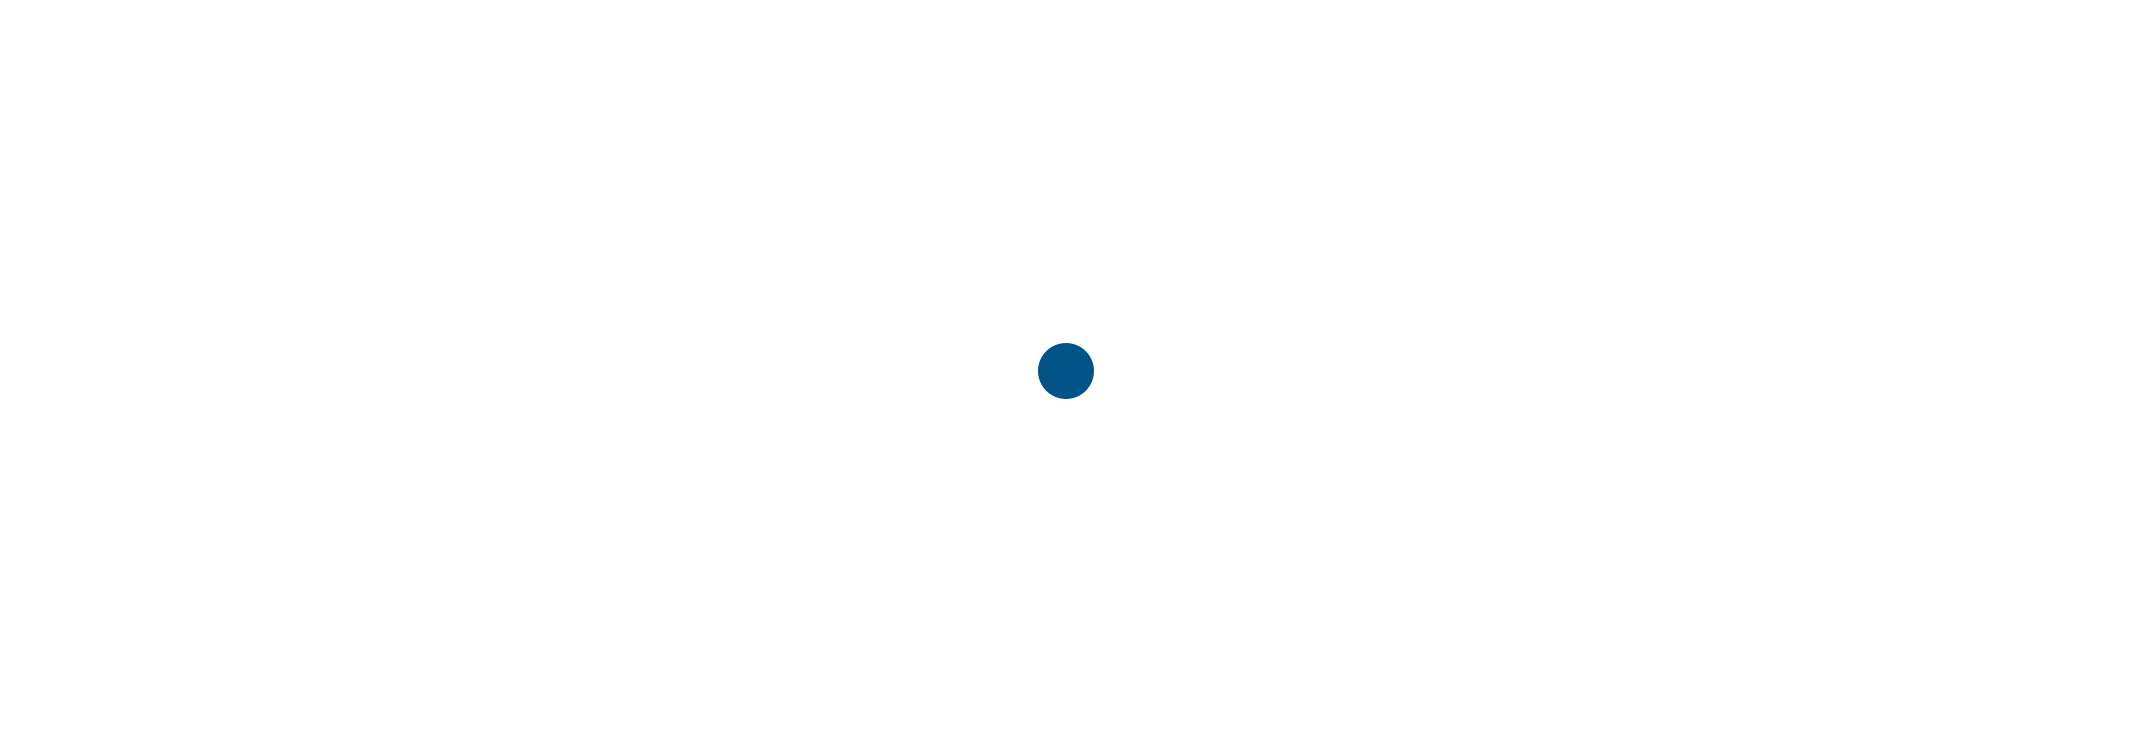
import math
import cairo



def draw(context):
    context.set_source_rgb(1, 1, 1)
    context.paint()
    context.set_source_rgb(0, 83 / 255, 135 / 255)
    context.arc(1066, 371, 28, 0, 2 * math.pi)
    context.fill()


surface = cairo.ImageSurface(cairo.Format.RGB24, 2129, 732)
context = cairo.Context(surface)
options = cairo.FontOptions()
options.set_hint_metrics(cairo.HintMetrics.OFF)
options.set_hint_style(cairo.HintStyle.NONE)
context.set_font_options(options)
context.set_miter_limit(4)
draw(context)
surface.write_to_png("out.png")
